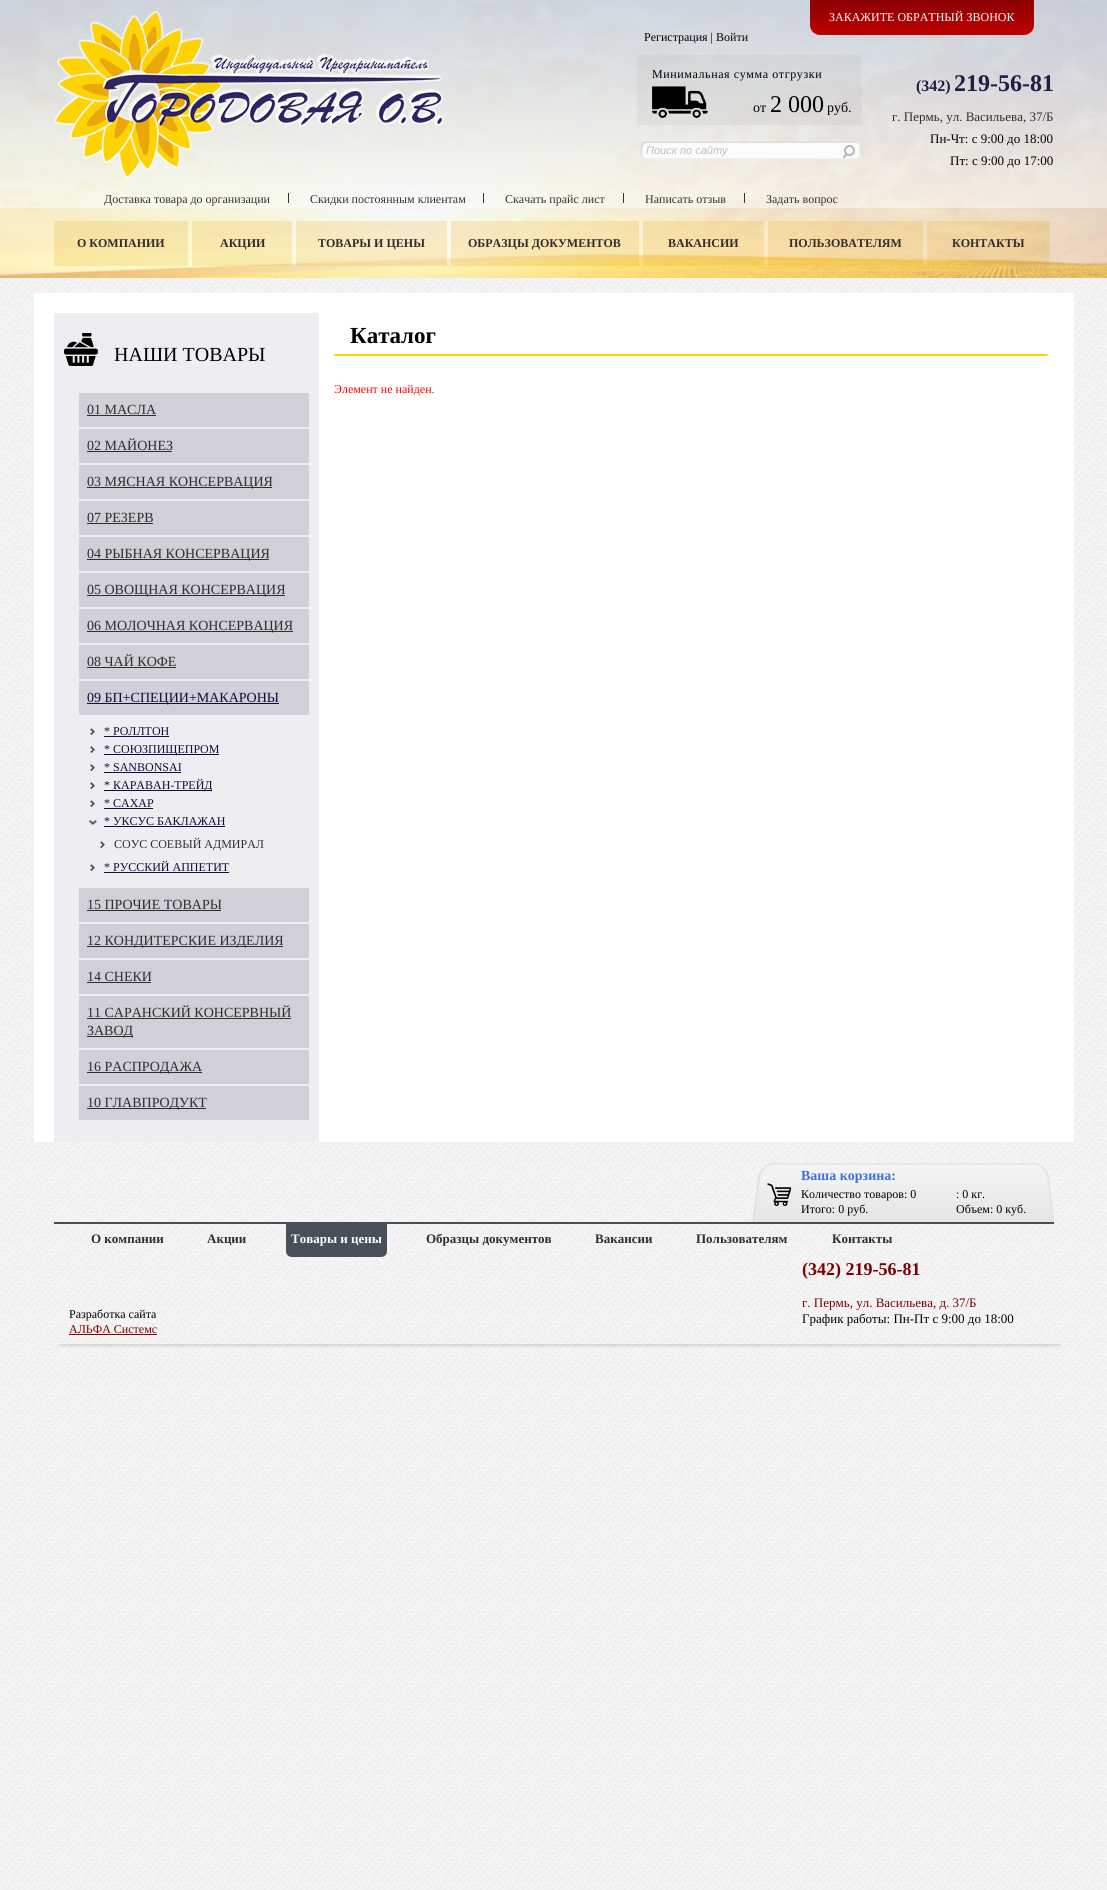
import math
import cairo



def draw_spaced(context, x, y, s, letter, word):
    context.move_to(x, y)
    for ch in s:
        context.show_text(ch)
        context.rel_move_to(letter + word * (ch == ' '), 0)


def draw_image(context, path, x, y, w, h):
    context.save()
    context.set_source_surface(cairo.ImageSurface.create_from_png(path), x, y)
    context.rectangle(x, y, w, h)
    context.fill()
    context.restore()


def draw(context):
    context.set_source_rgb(1, 1, 1)
    context.paint()
    draw_image(context, "images/1.png", 0, 278, 1107, 1612)
    draw_image(context, "images/2.png", 0, 0, 1107, 278)
    context.set_source_rgba(1, 1, 1, 0.65)
    context.rectangle(0, 0, 1107, 208)
    context.fill()
    draw_image(context, "images/3.png", 810, 0, 224, 35)
    draw_image(context, "images/4.png", 54, 10, 390, 168)
    context.set_source_rgba(179 / 255, 179 / 255, 179 / 255, 0.17)
    context.rectangle(637, 55, 225, 70)
    context.fill()
    draw_image(context, "images/5.png", 652, 86, 56, 32)
    draw_image(context, "images/6.png", 640, 141, 220, 19)
    draw_image(context, "images/7.png", 843, 145, 12, 13)
    context.set_source_rgb(51 / 255, 51 / 255, 51 / 255)
    context.rectangle(288, 193, 1, 10)
    context.fill()
    context.rectangle(483, 193, 1, 10)
    context.fill()
    context.rectangle(623, 193, 1, 10)
    context.fill()
    context.rectangle(744, 193, 1, 10)
    context.fill()
    context.set_source_rgba(1, 1, 1, 0.35)
    context.rectangle(0, 208, 1107, 70)
    context.fill()
    context.set_source_rgba(233 / 255, 167 / 255, 19 / 255, 0.2)
    context.rectangle(54, 221, 134, 45)
    context.fill()
    context.rectangle(192, 221, 100, 45)
    context.fill()
    context.rectangle(296, 221, 151, 45)
    context.fill()
    context.rectangle(451, 221, 188, 45)
    context.fill()
    context.rectangle(643, 221, 121, 45)
    context.fill()
    context.rectangle(768, 221, 155, 45)
    context.fill()
    context.rectangle(927, 221, 123, 45)
    context.fill()
    context.set_source_rgb(1, 1, 1)
    context.rectangle(34, 293, 1040, 849)
    context.fill()
    context.set_source_rgb(238 / 255, 238 / 255, 242 / 255)
    context.rectangle(54, 313, 265, 829)
    context.fill()
    draw_image(context, "images/8.png", 64, 333, 34, 33)
    context.set_source_rgb(209 / 255, 207 / 255, 215 / 255)
    context.rectangle(79, 393, 230, 34)
    context.fill()
    context.set_source_rgb(47 / 255, 45 / 255, 45 / 255)
    context.rectangle(87, 415, 69, 1)
    context.fill()
    context.set_source_rgb(209 / 255, 207 / 255, 215 / 255)
    context.rectangle(79, 429, 230, 34)
    context.fill()
    context.set_source_rgb(47 / 255, 45 / 255, 45 / 255)
    context.rectangle(87, 451, 85, 1)
    context.fill()
    context.set_source_rgb(209 / 255, 207 / 255, 215 / 255)
    context.rectangle(79, 465, 230, 34)
    context.fill()
    context.set_source_rgb(47 / 255, 45 / 255, 45 / 255)
    context.rectangle(87, 487, 185, 1)
    context.fill()
    context.set_source_rgb(209 / 255, 207 / 255, 215 / 255)
    context.rectangle(79, 501, 230, 34)
    context.fill()
    context.set_source_rgb(47 / 255, 45 / 255, 45 / 255)
    context.rectangle(87, 523, 66, 1)
    context.fill()
    context.set_source_rgb(209 / 255, 207 / 255, 215 / 255)
    context.rectangle(79, 537, 230, 34)
    context.fill()
    context.set_source_rgb(47 / 255, 45 / 255, 45 / 255)
    context.rectangle(87, 559, 182, 1)
    context.fill()
    context.set_source_rgb(209 / 255, 207 / 255, 215 / 255)
    context.rectangle(79, 573, 230, 34)
    context.fill()
    context.set_source_rgb(47 / 255, 45 / 255, 45 / 255)
    context.rectangle(87, 595, 198, 1)
    context.fill()
    context.set_source_rgb(209 / 255, 207 / 255, 215 / 255)
    context.rectangle(79, 609, 230, 34)
    context.fill()
    context.set_source_rgb(47 / 255, 45 / 255, 45 / 255)
    context.rectangle(87, 631, 206, 1)
    context.fill()
    context.set_source_rgb(209 / 255, 207 / 255, 215 / 255)
    context.rectangle(79, 645, 230, 34)
    context.fill()
    context.set_source_rgb(47 / 255, 45 / 255, 45 / 255)
    context.rectangle(87, 667, 89, 1)
    context.fill()
    context.set_source_rgb(209 / 255, 207 / 255, 215 / 255)
    context.rectangle(79, 681, 230, 34)
    context.fill()
    context.set_source_rgb(19 / 255, 12 / 255, 58 / 255)
    context.rectangle(87, 703, 192, 1)
    context.fill()
    draw_image(context, "images/9.png", 90, 728, 5, 7)
    context.rectangle(104, 736, 65, 1)
    context.fill()
    draw_image(context, "images/9.png", 90, 746, 5, 7)
    context.rectangle(104, 754, 115, 1)
    context.fill()
    draw_image(context, "images/9.png", 90, 764, 5, 7)
    context.rectangle(104, 772, 77, 1)
    context.fill()
    draw_image(context, "images/9.png", 90, 782, 5, 7)
    context.rectangle(104, 790, 108, 1)
    context.fill()
    draw_image(context, "images/9.png", 90, 800, 5, 7)
    context.rectangle(104, 808, 49, 1)
    context.fill()
    draw_image(context, "images/10.png", 89, 820, 8, 5)
    context.rectangle(104, 826, 121, 1)
    context.fill()
    draw_image(context, "images/9.png", 100, 841, 5, 7)
    draw_image(context, "images/9.png", 90, 864, 5, 7)
    context.rectangle(104, 872, 125, 1)
    context.fill()
    context.set_source_rgb(209 / 255, 207 / 255, 215 / 255)
    context.rectangle(79, 888, 230, 34)
    context.fill()
    context.set_source_rgb(47 / 255, 45 / 255, 45 / 255)
    context.rectangle(87, 910, 134, 1)
    context.fill()
    context.set_source_rgb(209 / 255, 207 / 255, 215 / 255)
    context.rectangle(79, 924, 230, 34)
    context.fill()
    context.set_source_rgb(47 / 255, 45 / 255, 45 / 255)
    context.rectangle(87, 946, 196, 1)
    context.fill()
    context.set_source_rgb(209 / 255, 207 / 255, 215 / 255)
    context.rectangle(79, 960, 230, 34)
    context.fill()
    context.set_source_rgb(47 / 255, 45 / 255, 45 / 255)
    context.rectangle(87, 982, 64, 1)
    context.fill()
    context.set_source_rgb(209 / 255, 207 / 255, 215 / 255)
    context.rectangle(79, 996, 230, 52)
    context.fill()
    context.set_source_rgb(47 / 255, 45 / 255, 45 / 255)
    context.rectangle(87, 1018, 204, 1)
    context.fill()
    context.rectangle(87, 1036, 46, 1)
    context.fill()
    context.set_source_rgb(209 / 255, 207 / 255, 215 / 255)
    context.rectangle(79, 1050, 230, 34)
    context.fill()
    context.set_source_rgb(47 / 255, 45 / 255, 45 / 255)
    context.rectangle(87, 1072, 115, 1)
    context.fill()
    context.set_source_rgb(209 / 255, 207 / 255, 215 / 255)
    context.rectangle(79, 1086, 230, 34)
    context.fill()
    context.set_source_rgb(47 / 255, 45 / 255, 45 / 255)
    context.rectangle(87, 1108, 119, 1)
    context.fill()
    draw_image(context, "images/11.png", 334, 354, 714, 2)
    draw_image(context, "images/12.png", 752, 1163, 302, 59)
    draw_image(context, "images/13.png", 767, 1183, 24, 23)
    context.set_source_rgb(71 / 255, 79 / 255, 88 / 255)
    context.rectangle(54, 1222, 1000, 2)
    context.fill()
    context.new_path()
    context.move_to(286, 1224)
    context.line_to(387, 1224)
    context.line_to(387, 1251)
    context.curve_to(387, 1254.5, 384.5, 1257, 381, 1257)
    context.line_to(292, 1257)
    context.curve_to(288.5, 1257, 286, 1254.5, 286, 1251)
    context.close_path()
    context.fill()
    context.set_source_rgb(130 / 255, 0, 0)
    context.rectangle(69, 1334, 88, 1)
    context.fill()
    draw_image(context, "images/14.png", 57, 1344, 1006, 4)
    context.select_font_face("Liberation Serif")
    context.set_font_size(12)
    context.set_source_rgb(1, 1, 1)
    context.move_to(829, 21)
    context.show_text("ЗАКАЖИТЕ ОБРАТНЫЙ ЗВОНОК")
    context.set_source_rgb(0, 0, 0)
    context.move_to(644, 41)
    context.show_text("Регистрация | Войти")
    draw_spaced(context, 652, 78, "Минимальная сумма отгрузки", 0.6, 0)
    context.set_font_size(14)
    context.move_to(753, 112)
    context.show_text("от")
    context.set_font_size(24)
    context.move_to(770, 112)
    context.show_text("2 000")
    context.set_font_size(14)
    context.move_to(827, 112)
    context.show_text("руб.")
    context.select_font_face("Liberation Sans", cairo.FontSlant.ITALIC)
    context.set_font_size(11)
    context.set_source_rgb(191 / 255, 191 / 255, 191 / 255)
    context.move_to(646, 154)
    context.show_text("Поиск по сайту")
    context.select_font_face("Liberation Serif", cairo.FontSlant.NORMAL, cairo.FontWeight.BOLD)
    context.set_font_size(16)
    context.set_source_rgb(34 / 255, 27 / 255, 66 / 255)
    context.move_to(916, 91)
    context.show_text("(342)")
    context.set_font_size(24)
    context.move_to(954, 91)
    context.show_text("219-56-81")
    context.select_font_face("Liberation Serif")
    context.set_font_size(13)
    context.set_source_rgb(47 / 255, 45 / 255, 45 / 255)
    context.move_to(892, 121)
    context.show_text("г. Пермь, ул. Васильева, 37/Б")
    context.set_source_rgb(0, 0, 0)
    context.move_to(930, 143)
    context.show_text("Пн-Чт: с 9:00 до 18:00")
    context.move_to(950, 165)
    context.show_text("Пт: с 9:00 до 17:00")
    context.set_font_size(12)
    context.set_source_rgb(51 / 255, 51 / 255, 51 / 255)
    context.move_to(104, 203)
    context.show_text("Доставка товара до организации")
    context.move_to(310, 203)
    context.show_text("Скидки постоянным клиентам")
    context.move_to(505, 203)
    context.show_text("Скачать прайс лист")
    context.move_to(645, 203)
    context.show_text("Написать отзыв")
    context.move_to(766, 203)
    context.show_text("Задать вопрос")
    context.select_font_face("Liberation Serif", cairo.FontSlant.NORMAL, cairo.FontWeight.BOLD)
    context.set_source_rgb(47 / 255, 45 / 255, 45 / 255)
    context.move_to(77, 247)
    context.show_text("О КОМПАНИИ")
    context.move_to(220, 247)
    context.show_text("АКЦИИ")
    context.move_to(318, 247)
    context.show_text("ТОВАРЫ И ЦЕНЫ")
    context.move_to(468, 247)
    context.show_text("ОБРАЗЦЫ ДОКУМЕНТОВ")
    context.move_to(668, 247)
    context.show_text("ВАКАНСИИ")
    context.move_to(789, 247)
    context.show_text("ПОЛЬЗОВАТЕЛЯМ")
    context.move_to(952, 247)
    context.show_text("КОНТАКТЫ")
    context.select_font_face("Liberation Serif")
    context.set_font_size(20)
    context.set_source_rgb(0, 0, 0)
    context.move_to(114, 361)
    context.show_text("НАШИ ТОВАРЫ")
    context.set_font_size(14)
    context.set_source_rgb(47 / 255, 45 / 255, 45 / 255)
    context.move_to(87, 414)
    context.show_text("01 МАСЛА")
    context.move_to(87, 450)
    context.show_text("02 МАЙОНЕЗ")
    context.move_to(87, 486)
    context.show_text("03 МЯСНАЯ КОНСЕРВАЦИЯ")
    context.move_to(87, 522)
    context.show_text("07 РЕЗЕРВ")
    context.move_to(87, 558)
    context.show_text("04 РЫБНАЯ КОНСЕРВАЦИЯ")
    context.move_to(87, 594)
    context.show_text("05 ОВОЩНАЯ КОНСЕРВАЦИЯ")
    context.move_to(87, 630)
    context.show_text("06 МОЛОЧНАЯ КОНСЕРВАЦИЯ")
    context.move_to(87, 666)
    context.show_text("08 ЧАЙ КОФЕ")
    context.set_source_rgb(19 / 255, 12 / 255, 58 / 255)
    context.move_to(87, 702)
    context.show_text("09 БП+СПЕЦИИ+МАКАРОНЫ")
    context.set_font_size(12)
    context.move_to(104, 735)
    context.show_text("* РОЛЛТОН")
    context.move_to(104, 753)
    context.show_text("* СОЮЗПИЩЕПРОМ")
    context.move_to(104, 771)
    context.show_text("* SANBONSAI")
    context.move_to(104, 789)
    context.show_text("* КАРАВАН-ТРЕЙД")
    context.move_to(104, 807)
    context.show_text("* САХАР")
    context.move_to(104, 825)
    context.show_text("* УКСУС БАКЛАЖАН")
    context.set_source_rgb(47 / 255, 45 / 255, 45 / 255)
    context.move_to(114, 848)
    context.show_text("СОУС СОЕВЫЙ АДМИРАЛ")
    context.set_source_rgb(19 / 255, 12 / 255, 58 / 255)
    context.move_to(104, 871)
    context.show_text("* РУССКИЙ АППЕТИТ")
    context.set_font_size(14)
    context.set_source_rgb(47 / 255, 45 / 255, 45 / 255)
    context.move_to(87, 909)
    context.show_text("15 ПРОЧИЕ ТОВАРЫ")
    context.move_to(87, 945)
    context.show_text("12 КОНДИТЕРСКИЕ ИЗДЕЛИЯ")
    context.move_to(87, 981)
    context.show_text("14 СНЕКИ")
    context.move_to(87, 1017)
    context.show_text("11 САРАНСКИЙ КОНСЕРВНЫЙ")
    context.move_to(87, 1035)
    context.show_text("ЗАВОД")
    context.move_to(87, 1071)
    context.show_text("16 РАСПРОДАЖА")
    context.move_to(87, 1107)
    context.show_text("10 ГЛАВПРОДУКТ")
    context.select_font_face("Liberation Serif", cairo.FontSlant.NORMAL, cairo.FontWeight.BOLD)
    context.set_font_size(23)
    context.set_source_rgb(0, 0, 0)
    context.move_to(350, 343)
    context.show_text("Каталог")
    context.select_font_face("Liberation Serif")
    context.set_font_size(12)
    context.set_source_rgb(1, 0, 0)
    context.move_to(334, 393)
    context.show_text("Элемент не найден.")
    context.select_font_face("Liberation Serif", cairo.FontSlant.NORMAL, cairo.FontWeight.BOLD)
    context.set_font_size(14)
    context.set_source_rgb(61 / 255, 113 / 255, 219 / 255)
    context.move_to(801, 1180)
    context.show_text("Ваша корзина:")
    context.select_font_face("Liberation Serif")
    context.set_font_size(12)
    context.set_source_rgb(0, 0, 0)
    context.move_to(801, 1198)
    context.show_text("Количество товаров: 0")
    context.move_to(956, 1198)
    context.show_text(": 0 кг.")
    context.move_to(801, 1213)
    context.show_text("Итого: 0 руб.")
    context.move_to(956, 1213)
    context.show_text("Объем: 0 куб.")
    context.select_font_face("Liberation Serif", cairo.FontSlant.NORMAL, cairo.FontWeight.BOLD)
    context.set_font_size(13)
    context.set_source_rgb(47 / 255, 45 / 255, 45 / 255)
    context.move_to(91, 1243)
    context.show_text("О компании")
    context.move_to(207, 1243)
    context.show_text("Акции")
    context.set_source_rgb(1, 1, 1)
    context.move_to(291, 1243)
    context.show_text("Товары и цены")
    context.set_source_rgb(47 / 255, 45 / 255, 45 / 255)
    context.move_to(426, 1243)
    context.show_text("Образцы документов")
    context.move_to(595, 1243)
    context.show_text("Вакансии")
    context.move_to(696, 1243)
    context.show_text("Пользователям")
    context.move_to(832, 1243)
    context.show_text("Контакты")
    context.select_font_face("Liberation Serif")
    context.set_font_size(12)
    context.set_source_rgb(0, 0, 0)
    context.move_to(69, 1318)
    context.show_text("Разработка сайта")
    context.set_source_rgb(130 / 255, 0, 0)
    context.move_to(69, 1333)
    context.show_text("АЛЬФА Системс")
    context.select_font_face("Liberation Serif", cairo.FontSlant.NORMAL, cairo.FontWeight.BOLD)
    context.set_font_size(18)
    context.set_source_rgb(123 / 255, 0, 0)
    context.move_to(802, 1275)
    context.show_text("(342) 219-56-81")
    context.select_font_face("Liberation Serif")
    context.set_font_size(13)
    context.move_to(802, 1307)
    context.show_text("г. Пермь, ул. Васильева, д. 37/Б")
    context.set_source_rgb(0, 0, 0)
    context.move_to(802, 1323)
    context.show_text("График работы: Пн-Пт с 9:00 до 18:00")


surface = cairo.ImageSurface(cairo.Format.RGB24, 1107, 1890)
context = cairo.Context(surface)
options = cairo.FontOptions()
options.set_hint_metrics(cairo.HintMetrics.OFF)
options.set_hint_style(cairo.HintStyle.NONE)
context.set_font_options(options)
context.set_miter_limit(4)
draw(context)
surface.write_to_png("out.png")
